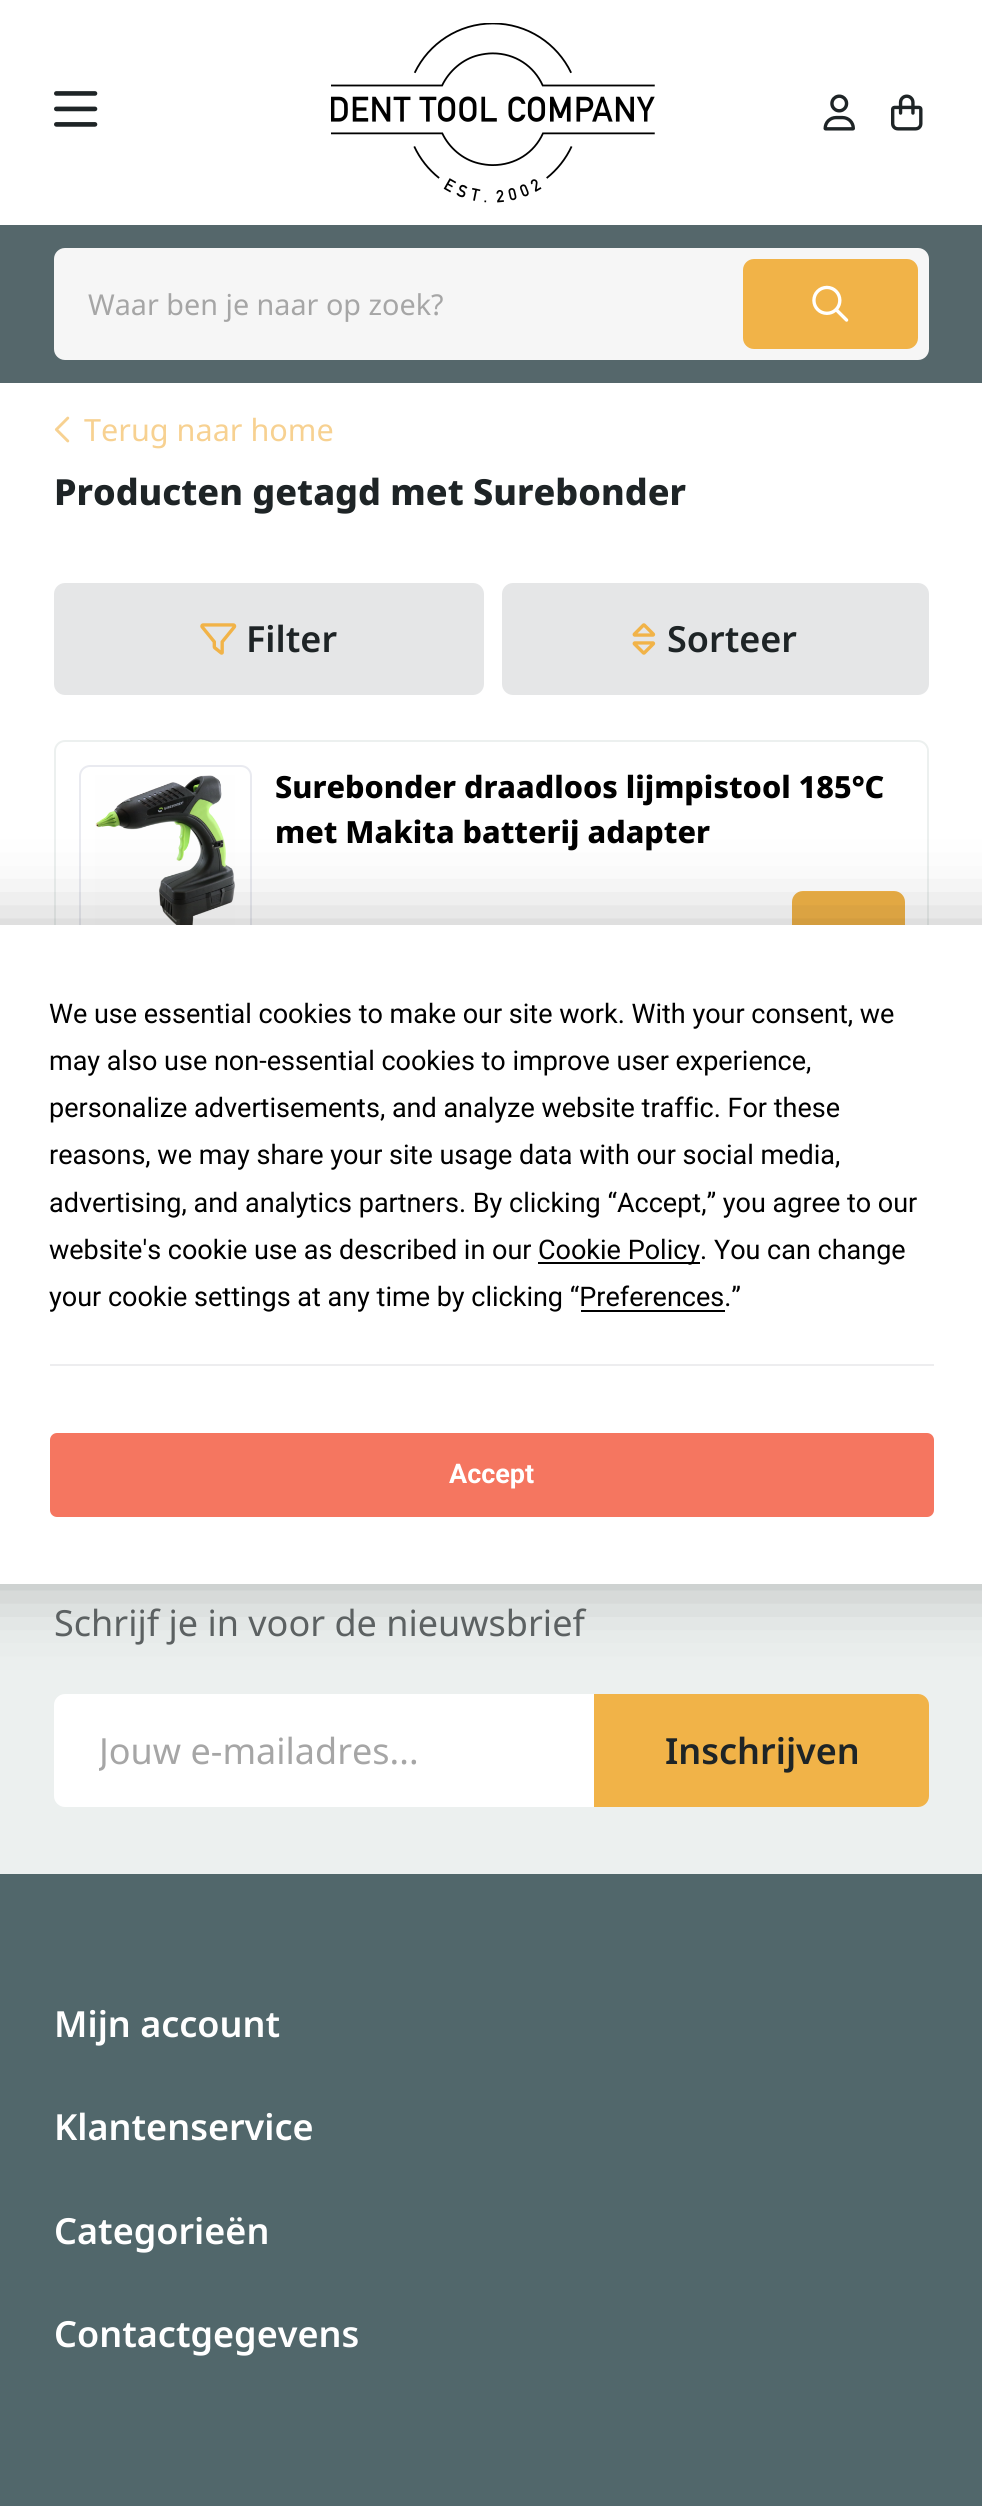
import math
import cairo



def rounded_rect(context, x, y, w, h, r):
    context.new_sub_path()
    for i, (u, v) in enumerate([(x + w - r, y + h - r), (x + r, y + h - r), (x + r, y + r), (x + w - r, y + r)]):
        context.arc(u, v, r, i * math.pi / 2, (i + 1) * math.pi / 2)
    context.close_path()


def draw_shadow(context, x, y, w, h, r, blur, alpha):
    context.push_group_with_content(cairo.Content.ALPHA)
    context.set_operator(cairo.Operator.SOURCE)
    for i in range(15, -16, -2):
        e = blur * i / 6
        if min(w, h) + 2 * e > 0:
            context.set_source_rgba(0, 0, 0, alpha * math.erfc((i - 1) / 8.5) / 2)
            rounded_rect(context, x - e, y - e, w + 2 * e, h + 2 * e, max(0, min(r + e + blur * .6, min(w, h) / 2 + e)))
            context.fill()
    context.mask(context.pop_group())


def draw_image(context, path, x, y, w, h):
    context.save()
    context.set_source_surface(cairo.ImageSurface.create_from_png(path), x, y)
    context.rectangle(x, y, w, h)
    context.fill()
    context.restore()


def draw(context):
    context.set_source_rgb(1, 1, 1)
    context.paint()
    draw_image(context, "images/1.png", 54, 91, 44, 36)
    draw_image(context, "images/2.png", 331, 23, 324, 180)
    draw_image(context, "images/3.png", 823, 94, 32, 37)
    draw_image(context, "images/4.png", 891, 94, 32, 37)
    context.set_source_rgb(85 / 255, 103 / 255, 107 / 255)
    context.rectangle(0, 225, 982, 158)
    context.fill()
    context.set_source_rgb(246 / 255, 246 / 255, 246 / 255)
    rounded_rect(context, 54, 248, 875, 112, 11)
    context.fill()
    context.set_source_rgb(241 / 255, 179 / 255, 72 / 255)
    rounded_rect(context, 744, 260, 173, 88, 10)
    context.fill_preserve()
    context.stroke()
    draw_image(context, "images/5.png", 812, 285, 37, 37)
    draw_image(context, "images/6.png", 54, 416, 16, 27)
    context.set_source_rgb(229 / 255, 230 / 255, 231 / 255)
    rounded_rect(context, 55, 584, 428, 110, 10)
    context.fill_preserve()
    context.stroke()
    draw_image(context, "images/7.png", 200, 623, 37, 32)
    rounded_rect(context, 503, 584, 425, 110, 10)
    context.fill_preserve()
    context.stroke()
    draw_image(context, "images/8.png", 632, 623, 24, 32)
    rounded_rect(context, 55, 741, 873, 286, 10)
    context.set_source_rgb(236 / 255, 240 / 255, 239 / 255)
    context.stroke()
    rounded_rect(context, 80, 766, 171, 178, 10)
    context.set_source_rgb(233 / 255, 234 / 255, 240 / 255)
    context.stroke()
    draw_image(context, "images/9.png", 95, 775, 140, 150)
    context.set_source_rgb(1, 1, 1)
    context.new_path()
    context.move_to(252, 743)
    context.line_to(918, 743)
    context.curve_to(923, 743, 927, 747, 927, 752)
    context.line_to(927, 1017)
    context.curve_to(927, 1022, 923, 1026, 918, 1026)
    context.line_to(252, 1026)
    context.close_path()
    context.fill()
    context.set_source_rgb(241 / 255, 179 / 255, 72 / 255)
    rounded_rect(context, 793, 892, 111, 111, 10)
    context.fill_preserve()
    context.stroke()
    context.set_source_rgb(236 / 255, 240 / 255, 239 / 255)
    context.rectangle(0, 1584, 982, 290)
    context.fill()
    context.set_source_rgb(1, 1, 1)
    context.new_path()
    context.move_to(65, 1694)
    context.line_to(594, 1694)
    context.line_to(594, 1807)
    context.line_to(65, 1807)
    context.curve_to(59, 1807, 54, 1802, 54, 1796)
    context.line_to(54, 1705)
    context.curve_to(54, 1699, 59, 1694, 65, 1694)
    context.close_path()
    context.fill()
    context.set_source_rgb(241 / 255, 179 / 255, 72 / 255)
    context.new_path()
    context.move_to(595, 1695)
    context.line_to(918, 1695)
    context.curve_to(923.5, 1695, 928, 1699.5, 928, 1705)
    context.line_to(928, 1796)
    context.curve_to(928, 1801.5, 923.5, 1806, 918, 1806)
    context.line_to(595, 1806)
    context.close_path()
    context.fill_preserve()
    context.stroke()
    context.set_source_rgb(81 / 255, 103 / 255, 107 / 255)
    context.rectangle(0, 1874, 982, 632)
    context.fill()
    context.set_source_rgb(0, 0, 0)
    draw_shadow(context, -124, 925, 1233, 659, 11, 39.5, 0.25)
    context.set_source_rgb(1, 1, 1)
    context.rectangle(0, 925, 982, 659)
    context.fill()
    context.set_source_rgb(0, 0, 0)
    context.rectangle(538, 1262, 162, 2)
    context.fill()
    context.rectangle(581, 1310, 144, 2)
    context.fill()
    context.set_source_rgb(237 / 255, 237 / 255, 239 / 255)
    context.rectangle(50, 1364, 884, 2)
    context.fill()
    context.set_source_rgb(245 / 255, 118 / 255, 96 / 255)
    rounded_rect(context, 51, 1434, 882, 82, 6)
    context.fill_preserve()
    context.stroke()
    context.select_font_face("Noto Sans")
    context.set_font_size(28.75)
    context.set_source_rgb(166 / 255, 166 / 255, 166 / 255)
    context.move_to(88, 315)
    context.show_text("Waar ben je naar op zoek?")
    context.set_font_size(30.6)
    context.set_source_rgb(247 / 255, 209 / 255, 145 / 255)
    context.move_to(84, 441)
    context.show_text("Terug naar home")
    context.select_font_face("Noto Sans ExtraBold")
    context.set_font_size(36)
    context.set_source_rgb(30 / 255, 36 / 255, 38 / 255)
    context.move_to(54, 505)
    context.show_text("Producten getagd met Surebonder")
    context.select_font_face("Noto Sans SemiBold")
    context.move_to(246, 652)
    context.show_text("Filter")
    context.move_to(667, 652)
    context.show_text("Sorteer")
    context.select_font_face("Noto Sans ExtraBold")
    context.set_font_size(30.6)
    context.set_source_rgb(0, 0, 0)
    context.move_to(275, 798)
    context.show_text("Surebonder draadloos lijmpistool 185°C")
    context.move_to(275, 843)
    context.show_text("met Makita batterij adapter")
    context.select_font_face("Noto Sans")
    context.set_font_size(36)
    context.set_source_rgb(92 / 255, 97 / 255, 98 / 255)
    context.move_to(54, 1636)
    context.show_text("Schrijf je in voor de nieuwsbrief")
    context.save()
    context.rectangle(99, 1726, 450, 49)
    context.clip()
    context.set_source_rgb(166 / 255, 166 / 255, 166 / 255)
    context.move_to(99, 1764)
    context.show_text("Jouw e-mailadres...")
    context.restore()
    context.select_font_face("Noto Sans SemiBold")
    context.set_source_rgb(30 / 255, 36 / 255, 38 / 255)
    context.move_to(665, 1764)
    context.show_text("Inschrijven")
    context.set_source_rgb(1, 1, 1)
    context.move_to(54, 2037)
    context.show_text("Mijn account")
    context.move_to(54, 2140)
    context.show_text("Klantenservice")
    context.move_to(54, 2244)
    context.show_text("Categorieën")
    context.move_to(54, 2347)
    context.show_text("Contactgegevens")
    context.select_font_face("Roboto")
    context.set_font_size(27)
    context.set_source_rgb(0, 0, 0)
    context.move_to(49, 1023)
    context.show_text("We use essential cookies to make our site work. With your consent, we")
    context.move_to(49, 1070)
    context.show_text("may also use non-essential cookies to improve user experience,")
    context.move_to(49, 1117)
    context.show_text("personalize advertisements, and analyze website traffic. For these")
    context.move_to(49, 1164)
    context.show_text("reasons, we may share your site usage data with our social media,")
    context.move_to(49, 1212)
    context.show_text("advertising, and analytics partners. By clicking “Accept,” you agree to our")
    context.move_to(49, 1259)
    context.show_text("website's cookie use as described in our")
    context.move_to(538, 1259)
    context.show_text("Cookie Policy. You can change")
    context.move_to(49, 1306)
    context.show_text("your cookie settings at any time by clicking “Preferences.”")
    context.select_font_face("Roboto", cairo.FontSlant.NORMAL, cairo.FontWeight.BOLD)
    context.set_source_rgb(1, 1, 1)
    context.move_to(449, 1483)
    context.show_text("Accept")


surface = cairo.ImageSurface(cairo.Format.RGB24, 982, 2506)
context = cairo.Context(surface)
options = cairo.FontOptions()
options.set_hint_metrics(cairo.HintMetrics.OFF)
options.set_hint_style(cairo.HintStyle.NONE)
context.set_font_options(options)
context.set_miter_limit(4)
draw(context)
surface.write_to_png("out.png")
